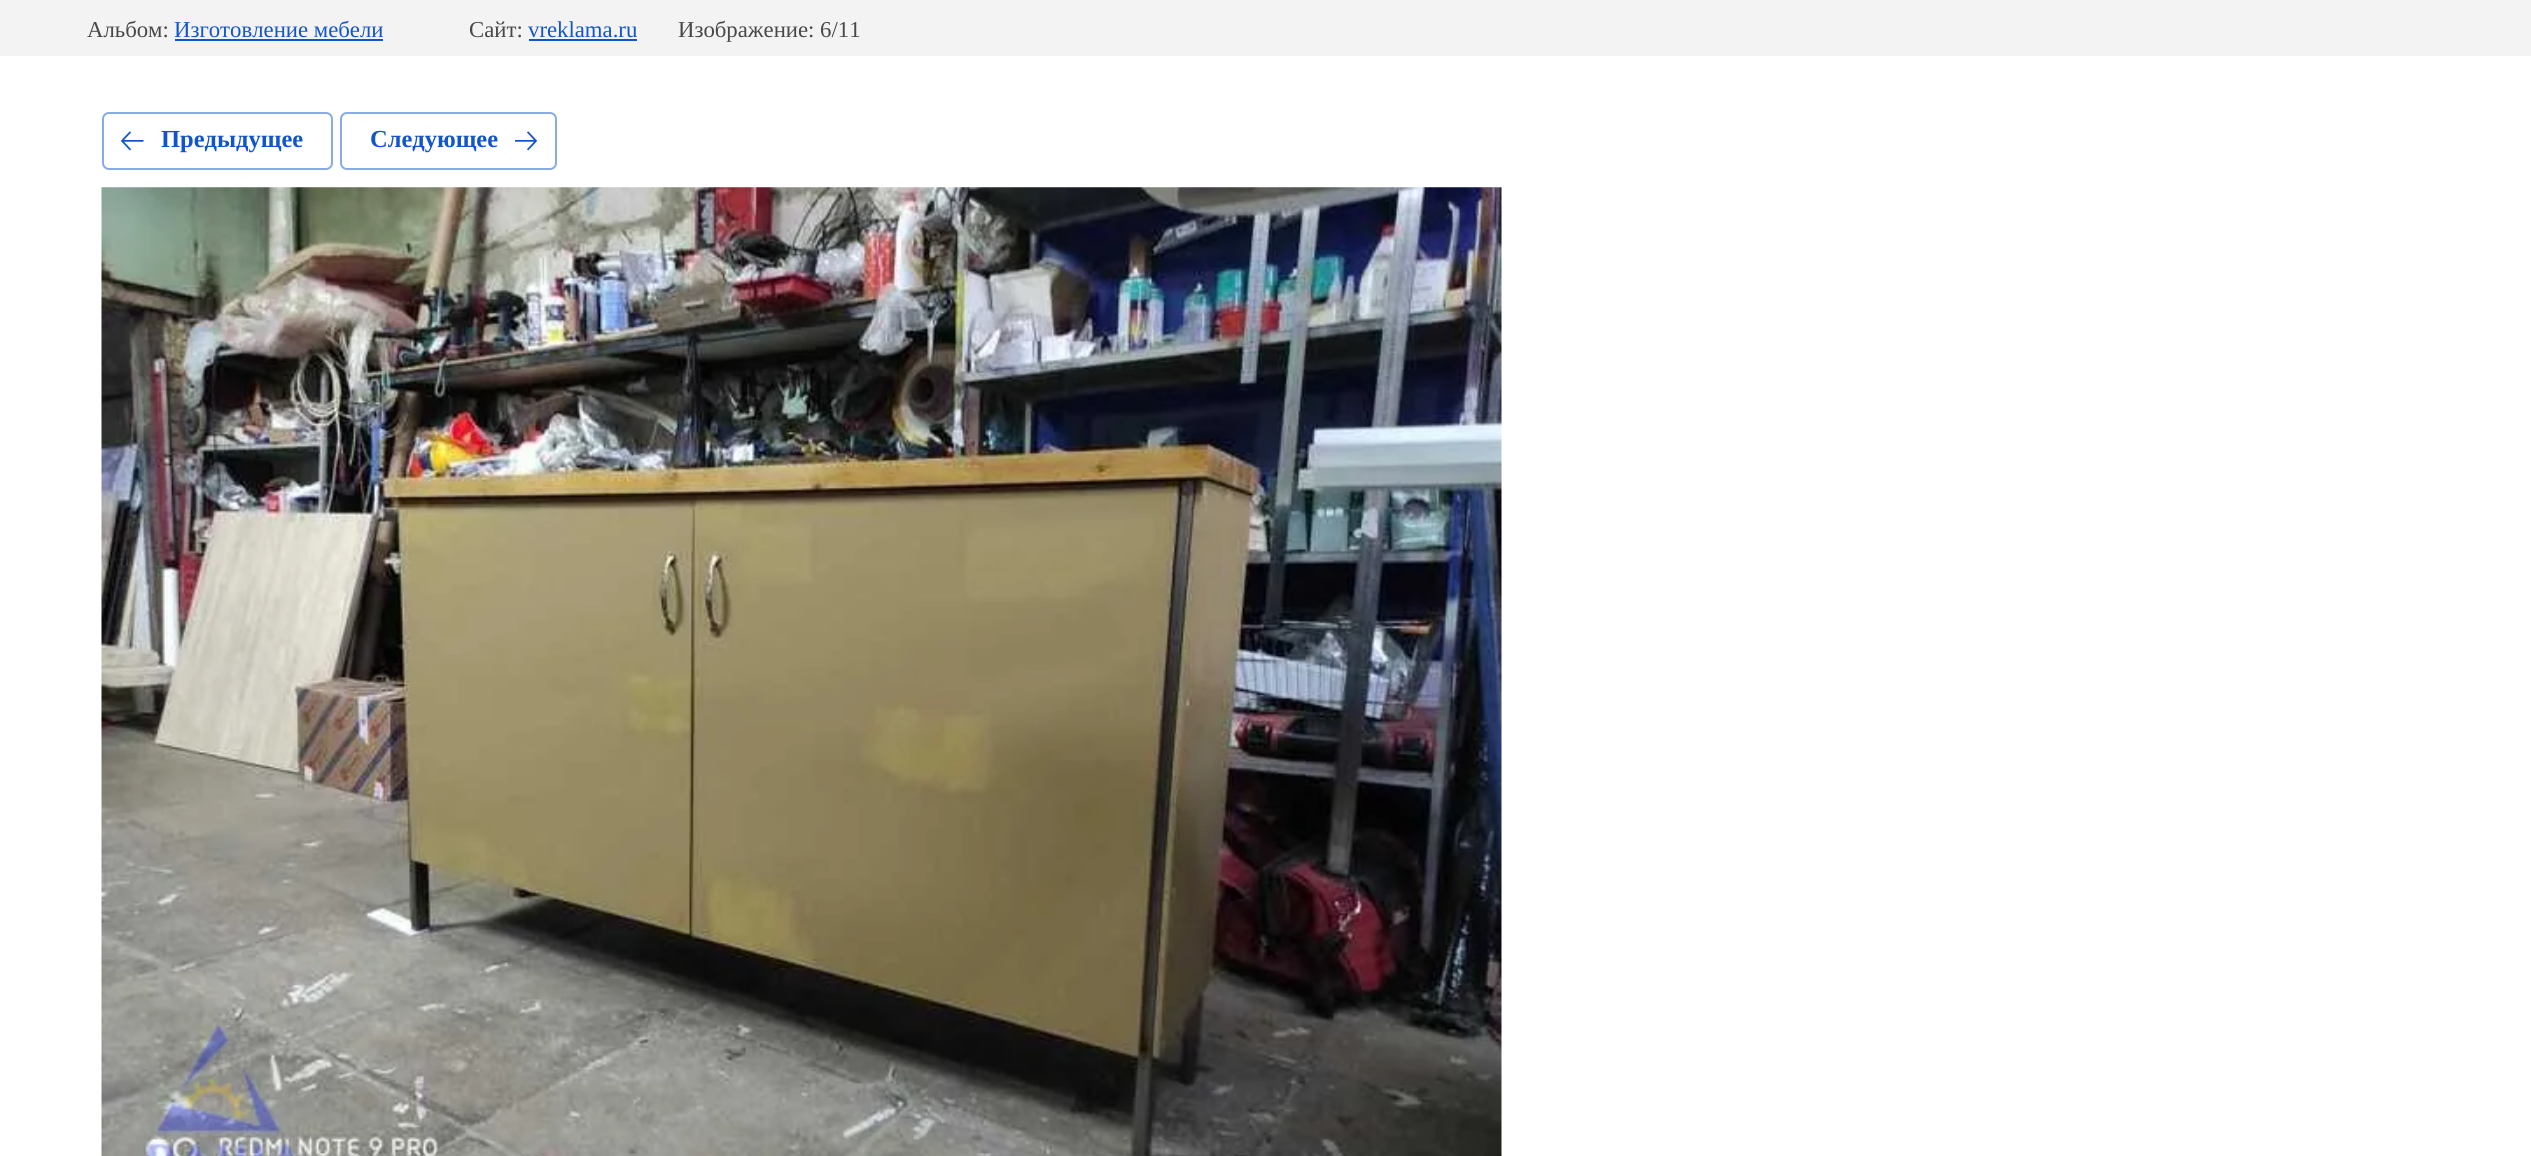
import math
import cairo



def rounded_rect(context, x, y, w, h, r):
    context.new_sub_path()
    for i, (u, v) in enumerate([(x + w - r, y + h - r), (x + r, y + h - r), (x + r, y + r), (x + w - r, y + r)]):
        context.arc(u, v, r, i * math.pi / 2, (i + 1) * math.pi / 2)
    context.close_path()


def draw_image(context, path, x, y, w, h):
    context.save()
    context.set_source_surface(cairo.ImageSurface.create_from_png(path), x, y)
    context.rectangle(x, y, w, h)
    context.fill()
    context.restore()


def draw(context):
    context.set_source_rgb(1, 1, 1)
    context.paint()
    context.set_source_rgb(243 / 255, 243 / 255, 243 / 255)
    context.rectangle(0, 0, 2531, 56)
    context.fill()
    context.set_source_rgb(17 / 255, 85 / 255, 204 / 255)
    context.rectangle(175, 39, 208, 2)
    context.fill()
    context.rectangle(529, 39, 108, 2)
    context.fill()
    rounded_rect(context, 103, 113, 229, 56, 6)
    context.set_source_rgb(136 / 255, 170 / 255, 230 / 255)
    context.stroke()
    draw_image(context, "images/1.png", 121, 131, 23, 20)
    rounded_rect(context, 341, 113, 215, 56, 6)
    context.stroke()
    draw_image(context, "images/2.png", 515, 131, 22, 20)
    draw_image(context, "images/3.png", 101, 187, 1401, 969)
    context.select_font_face("Liberation Serif")
    context.set_font_size(22.75)
    context.set_source_rgb(72 / 255, 72 / 255, 72 / 255)
    context.move_to(87, 37)
    context.show_text("Альбом:")
    context.set_source_rgb(17 / 255, 85 / 255, 204 / 255)
    context.move_to(174, 37)
    context.show_text("Изготовление мебели")
    context.set_source_rgb(72 / 255, 72 / 255, 72 / 255)
    context.move_to(469, 37)
    context.show_text("Сайт:")
    context.set_source_rgb(17 / 255, 85 / 255, 204 / 255)
    context.move_to(528, 37)
    context.show_text("vreklama.ru")
    context.set_source_rgb(72 / 255, 72 / 255, 72 / 255)
    context.move_to(678, 37)
    context.show_text("Изображение: 6/11")
    context.select_font_face("Liberation Serif", cairo.FontSlant.NORMAL, cairo.FontWeight.BOLD)
    context.set_font_size(24.5)
    context.set_source_rgb(17 / 255, 85 / 255, 204 / 255)
    context.move_to(161, 147)
    context.show_text("Предыдущее")
    context.move_to(370, 147)
    context.show_text("Следующее")


surface = cairo.ImageSurface(cairo.Format.RGB24, 2531, 1156)
context = cairo.Context(surface)
options = cairo.FontOptions()
options.set_hint_metrics(cairo.HintMetrics.OFF)
options.set_hint_style(cairo.HintStyle.NONE)
context.set_font_options(options)
context.set_miter_limit(4)
draw(context)
surface.write_to_png("out.png")
